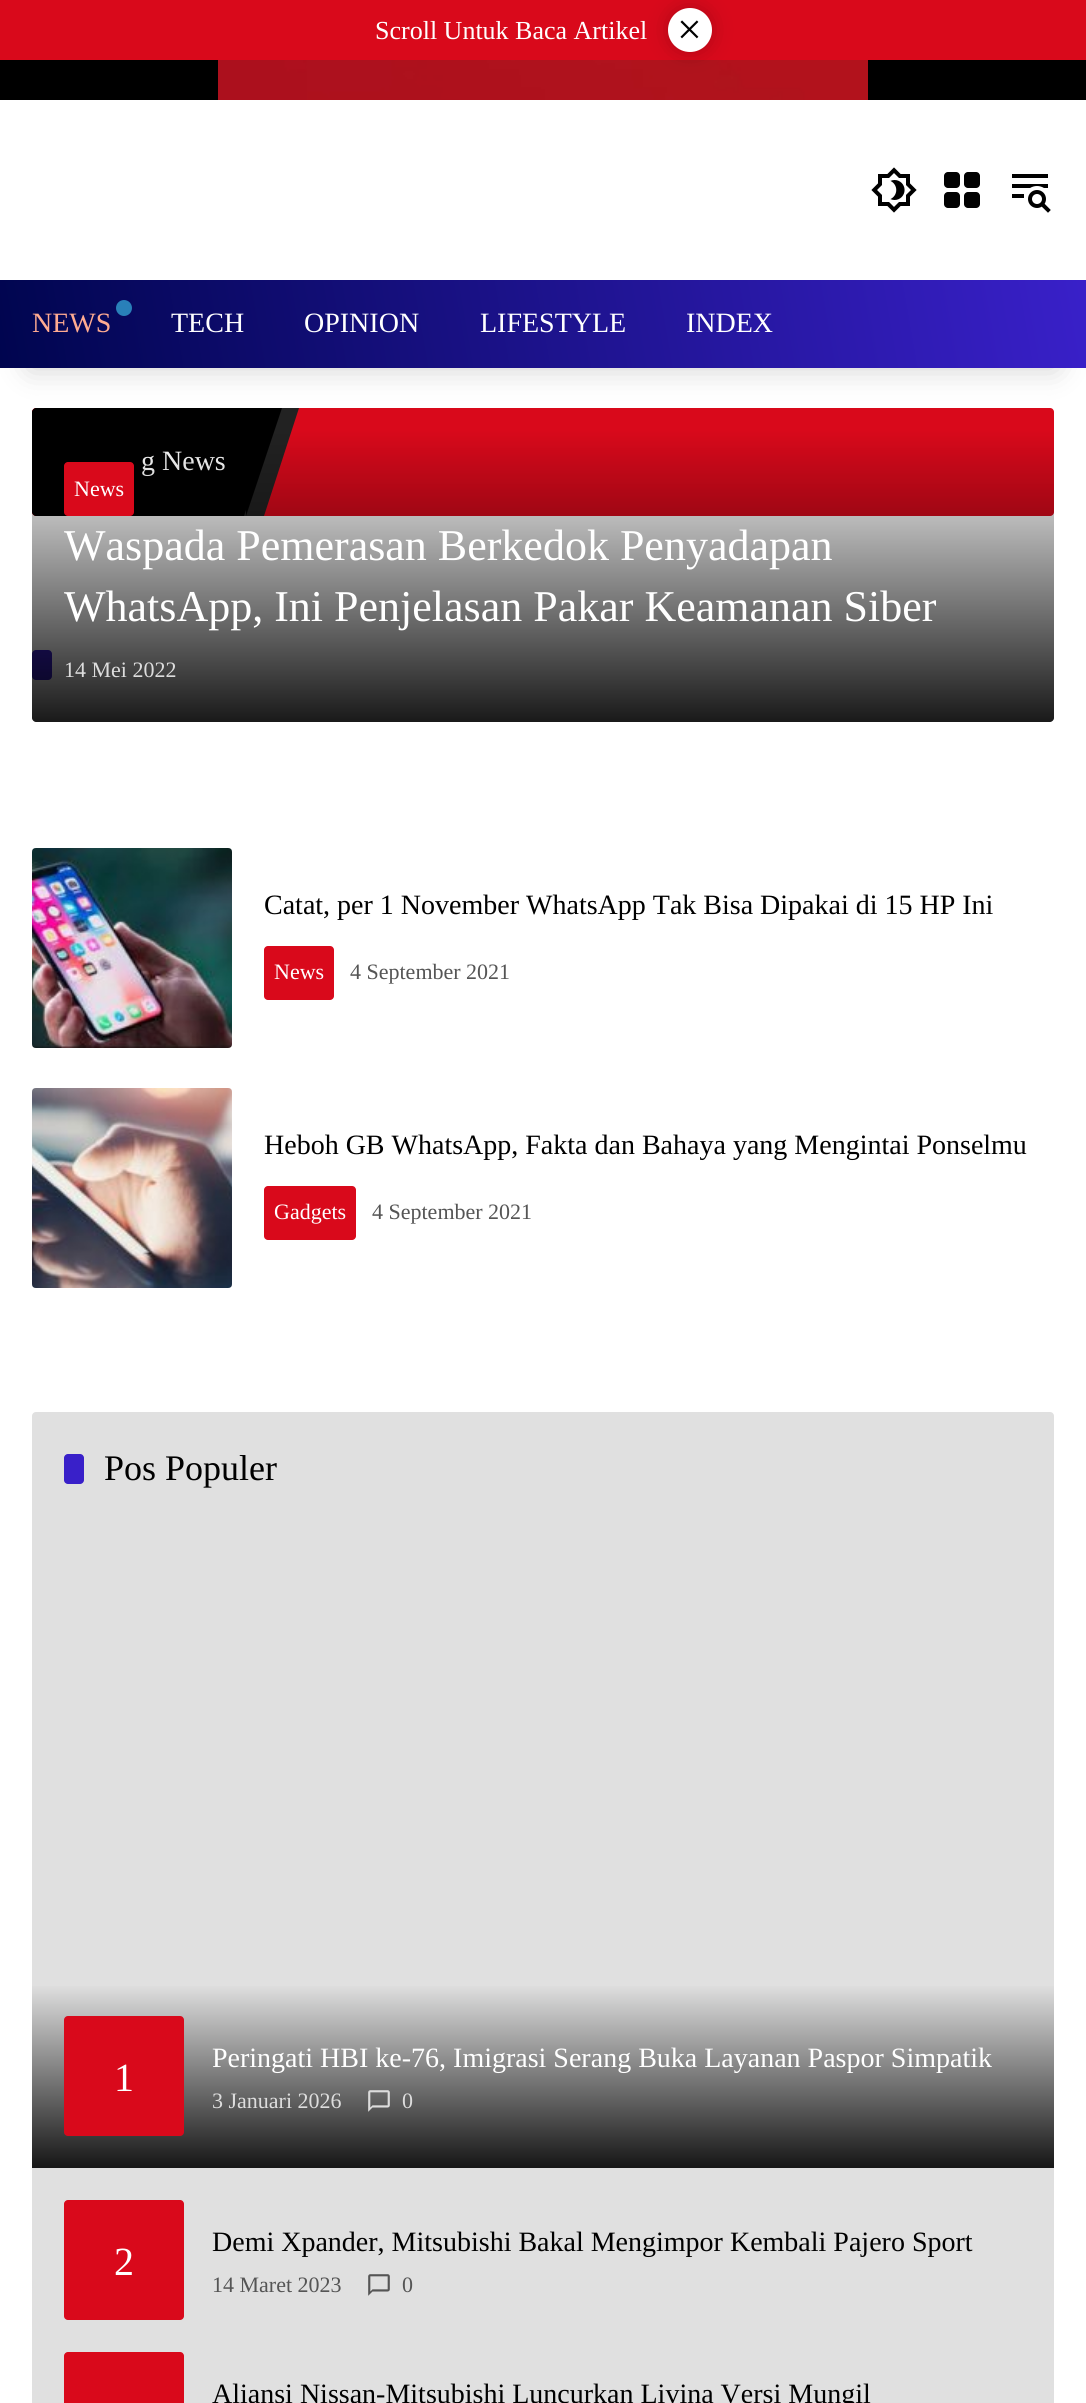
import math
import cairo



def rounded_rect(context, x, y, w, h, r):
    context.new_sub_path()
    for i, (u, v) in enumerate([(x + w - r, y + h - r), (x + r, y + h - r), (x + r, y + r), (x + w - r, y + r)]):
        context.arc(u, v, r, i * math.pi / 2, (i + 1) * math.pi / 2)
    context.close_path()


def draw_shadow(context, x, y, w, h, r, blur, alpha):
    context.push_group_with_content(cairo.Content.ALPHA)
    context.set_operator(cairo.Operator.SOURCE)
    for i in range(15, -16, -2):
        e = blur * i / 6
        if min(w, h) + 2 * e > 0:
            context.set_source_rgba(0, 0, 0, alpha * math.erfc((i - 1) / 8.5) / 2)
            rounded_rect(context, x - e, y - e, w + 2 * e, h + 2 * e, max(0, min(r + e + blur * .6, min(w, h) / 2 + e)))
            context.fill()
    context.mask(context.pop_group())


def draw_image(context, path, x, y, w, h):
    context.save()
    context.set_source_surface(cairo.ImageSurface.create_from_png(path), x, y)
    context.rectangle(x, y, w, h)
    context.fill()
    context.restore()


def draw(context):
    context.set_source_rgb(0, 0, 0)
    context.paint()
    context.set_source_rgb(217 / 255, 9 / 255, 27 / 255)
    context.rectangle(0, 0, 1086, 60)
    context.fill()
    draw_image(context, "images/1.png", 218, 60, 650, 40)
    context.set_source_rgb(0, 0, 0)
    draw_shadow(context, 668, 8, 44, 44, 22, 10, 0.2)
    context.set_source_rgb(1, 1, 1)
    context.arc(690, 30, 22, 0, 2 * math.pi)
    context.fill()
    context.rectangle(0, 100, 1086, 2303)
    context.fill()
    draw_image(context, "images/2.png", 871, 167, 46, 46)
    draw_image(context, "images/3.png", 944, 172, 36, 36)
    draw_image(context, "images/4.png", 1012, 174, 39, 39)
    context.set_source_rgb(217 / 255, 9 / 255, 27 / 255)
    rounded_rect(context, 32, 408, 1022, 108, 4)
    context.fill()
    context.set_source_rgb(0, 0, 0)
    context.new_path()
    context.move_to(36, 408)
    context.line_to(246, 408)
    context.line_to(246, 516)
    context.line_to(36, 516)
    context.curve_to(34, 516, 32, 514, 32, 512)
    context.line_to(32, 412)
    context.curve_to(32, 410, 34, 408, 36, 408)
    context.close_path()
    context.fill()
    context.set_source_rgb(34 / 255, 34 / 255, 34 / 255)
    context.new_path()
    context.move_to(279, 408)
    context.line_to(299, 408)
    context.line_to(264, 516)
    context.line_to(244, 516)
    context.close_path()
    context.fill()
    context.set_source_rgb(0, 0, 0)
    context.new_path()
    context.move_to(246, 408)
    context.line_to(282, 408)
    context.line_to(246, 516)
    context.close_path()
    context.fill()
    context.set_source_rgb(0, 0, 0)
    draw_shadow(context, 30, 340, 1026, 28, 0, 15, 0.2)
    gradient = cairo.LinearGradient(9, 418, 1077, 230)
    gradient.add_color_stop_rgba(0, 0, 5 / 255, 79 / 255, 1)
    gradient.add_color_stop_rgba(1, 57 / 255, 32 / 255, 201 / 255, 1)
    context.set_source(gradient)
    context.rectangle(0, 280, 1086, 88)
    context.fill()
    context.set_source_rgb(41 / 255, 128 / 255, 185 / 255)
    context.arc(124, 308, 8, 0, 2 * math.pi)
    context.fill()
    context.set_source_rgb(57 / 255, 32 / 255, 201 / 255)
    rounded_rect(context, 32, 650, 20, 30, 4)
    context.fill()
    draw_image(context, "images/5.png", 32, 848, 200, 200)
    context.set_source_rgb(217 / 255, 9 / 255, 27 / 255)
    rounded_rect(context, 264, 946, 70, 54, 4)
    context.fill()
    draw_image(context, "images/6.png", 32, 1088, 200, 200)
    rounded_rect(context, 264, 1186, 92, 54, 4)
    context.fill()
    context.set_source_rgb(224 / 255, 224 / 255, 224 / 255)
    rounded_rect(context, 32, 1412, 1022, 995, 4)
    context.fill()
    context.set_source_rgb(57 / 255, 32 / 255, 201 / 255)
    rounded_rect(context, 64, 1454, 20, 30, 4)
    context.fill()
    gradient = cairo.LinearGradient(543, 2168, 543, 1984)
    gradient.add_color_stop_rgba(0, 22 / 255, 22 / 255, 22 / 255, 1)
    gradient.add_color_stop_rgba(1, 224 / 255, 224 / 255, 224 / 255, 1)
    context.set_source(gradient)
    context.rectangle(32, 1986, 1022, 182)
    context.fill()
    context.set_source_rgb(217 / 255, 9 / 255, 27 / 255)
    rounded_rect(context, 64, 2016, 120, 120, 4)
    context.fill()
    draw_image(context, "images/7.png", 368, 2090, 22, 22)
    rounded_rect(context, 64, 2200, 120, 120, 4)
    context.fill()
    draw_image(context, "images/8.png", 368, 2274, 22, 22)
    rounded_rect(context, 64, 2352, 120, 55, 4)
    context.fill()
    context.select_font_face("Liberation Serif")
    context.set_font_size(26)
    context.set_source_rgb(1, 1, 1)
    context.move_to(375, 39)
    context.show_text("Scroll Untuk Baca Artikel")
    context.set_font_size(44)
    context.set_source_rgb(0, 0, 0)
    context.move_to(677, 44)
    context.show_text("×")
    context.set_font_size(28)
    context.set_source_rgb(1, 171 / 255, 145 / 255)
    context.move_to(32, 332)
    context.show_text("NEWS")
    context.set_source_rgb(1, 1, 1)
    context.move_to(171, 332)
    context.show_text("TECH")
    context.move_to(304, 332)
    context.show_text("OPINION")
    context.move_to(480, 332)
    context.show_text("LIFESTYLE")
    context.move_to(686, 332)
    context.show_text("INDEX")
    context.move_to(141, 470)
    context.show_text("g News")
    gradient = cairo.LinearGradient(543, 722, 543, 430)
    gradient.add_color_stop_rgba(0, 0, 0, 0, 0.9)
    gradient.add_color_stop_rgba(1, 0, 0, 0, 0)
    context.set_source(gradient)
    context.new_path()
    context.move_to(32, 430)
    context.line_to(1054, 430)
    context.line_to(1054, 718)
    context.curve_to(1054, 720, 1052, 722, 1050, 722)
    context.line_to(36, 722)
    context.curve_to(34, 722, 32, 720, 32, 718)
    context.close_path()
    context.fill()
    context.set_source_rgb(217 / 255, 9 / 255, 27 / 255)
    rounded_rect(context, 64, 462, 70, 54, 4)
    context.fill()
    context.set_font_size(22)
    context.set_source_rgb(1, 1, 1)
    context.move_to(74, 496)
    context.show_text("News")
    context.set_font_size(44)
    context.move_to(64, 560)
    context.show_text("Waspada Pemerasan Berkedok Penyadapan")
    context.move_to(64, 621)
    context.show_text("WhatsApp, Ini Penjelasan Pakar Keamanan Siber")
    context.set_font_size(22)
    context.set_source_rgb(221 / 255, 221 / 255, 221 / 255)
    context.move_to(64, 677)
    context.show_text("14 Mei 2022")
    context.set_font_size(28)
    context.set_source_rgb(0, 0, 0)
    context.move_to(264, 914)
    context.show_text("Catat, per 1 November WhatsApp Tak Bisa Dipakai di 15 HP Ini")
    context.set_font_size(22)
    context.set_source_rgb(1, 1, 1)
    context.move_to(274, 979)
    context.show_text("News")
    context.set_source_rgb(85 / 255, 85 / 255, 85 / 255)
    context.move_to(350, 979)
    context.show_text("4 September 2021")
    context.set_font_size(28)
    context.set_source_rgb(0, 0, 0)
    context.move_to(264, 1154)
    context.show_text("Heboh GB WhatsApp, Fakta dan Bahaya yang Mengintai Ponselmu")
    context.set_font_size(22)
    context.set_source_rgb(1, 1, 1)
    context.move_to(274, 1219)
    context.show_text("Gadgets")
    context.set_source_rgb(85 / 255, 85 / 255, 85 / 255)
    context.move_to(372, 1219)
    context.show_text("4 September 2021")
    context.set_font_size(36)
    context.set_source_rgb(0, 0, 0)
    context.move_to(104, 1480)
    context.show_text("Pos Populer")
    context.set_font_size(40)
    context.set_source_rgb(1, 1, 1)
    context.move_to(114, 2091)
    context.show_text("1")
    context.set_font_size(28)
    context.move_to(212, 2067)
    context.show_text("Peringati HBI ke-76, Imigrasi Serang Buka Layanan Paspor Simpatik")
    context.set_font_size(22)
    context.set_source_rgb(221 / 255, 221 / 255, 221 / 255)
    context.move_to(212, 2108)
    context.show_text("3 Januari 2026")
    context.move_to(402, 2108)
    context.show_text("0")
    context.set_font_size(40)
    context.set_source_rgb(1, 1, 1)
    context.move_to(114, 2275)
    context.show_text("2")
    context.set_font_size(28)
    context.set_source_rgb(0, 0, 0)
    context.move_to(212, 2251)
    context.show_text("Demi Xpander, Mitsubishi Bakal Mengimpor Kembali Pajero Sport")
    context.set_font_size(22)
    context.set_source_rgb(85 / 255, 85 / 255, 85 / 255)
    context.move_to(212, 2292)
    context.show_text("14 Maret 2023")
    context.move_to(402, 2292)
    context.show_text("0")
    context.set_font_size(28)
    context.set_source_rgb(0, 0, 0)
    context.move_to(212, 2403)
    context.show_text("Aliansi Nissan-Mitsubishi Luncurkan Livina Versi Mungil")


surface = cairo.ImageSurface(cairo.Format.RGB24, 1086, 2403)
context = cairo.Context(surface)
options = cairo.FontOptions()
options.set_hint_metrics(cairo.HintMetrics.OFF)
options.set_hint_style(cairo.HintStyle.NONE)
context.set_font_options(options)
context.set_miter_limit(4)
draw(context)
surface.write_to_png("out.png")
